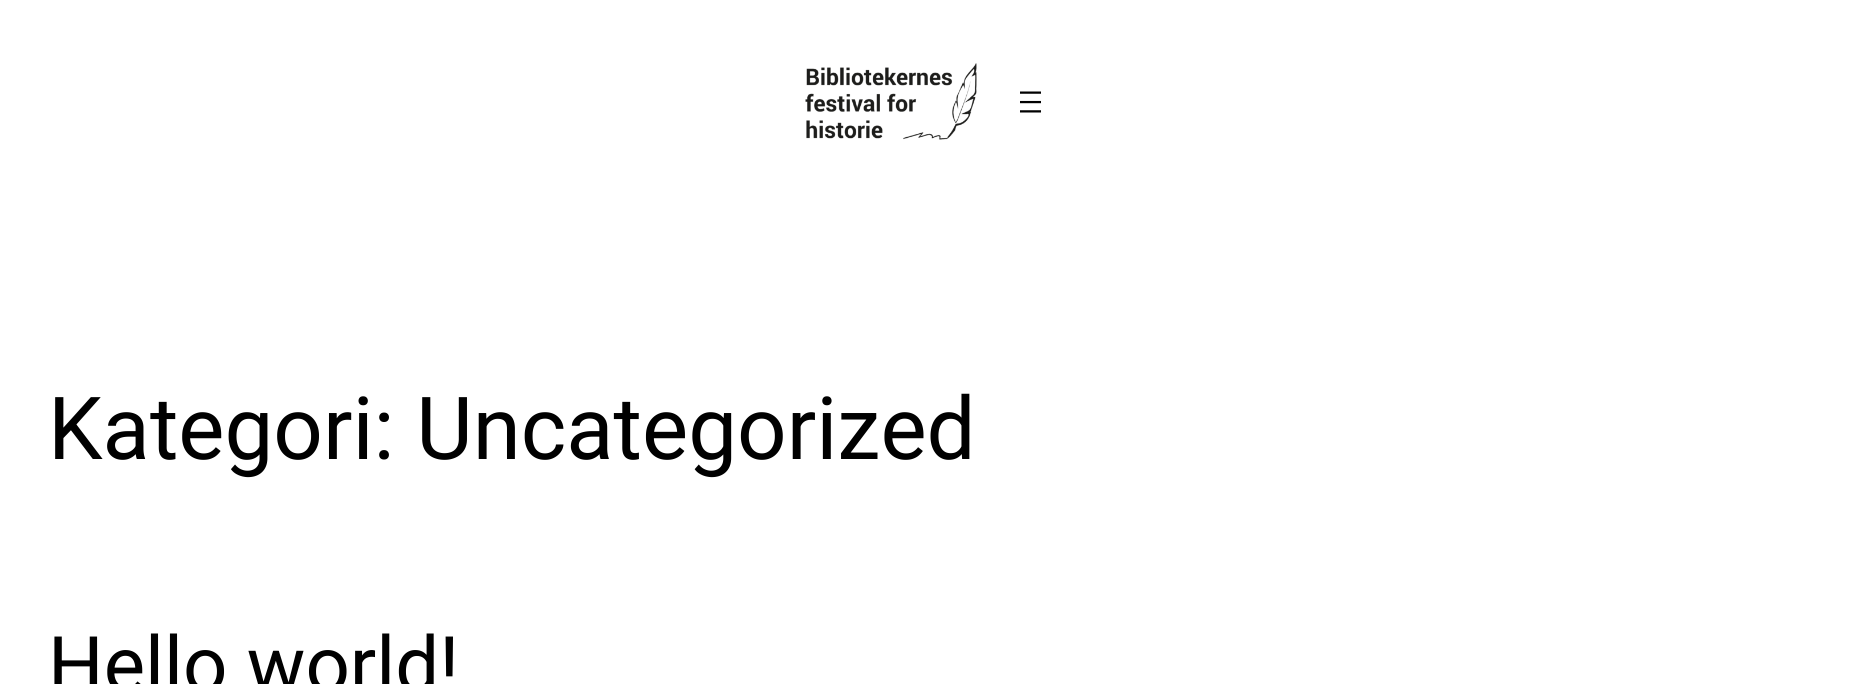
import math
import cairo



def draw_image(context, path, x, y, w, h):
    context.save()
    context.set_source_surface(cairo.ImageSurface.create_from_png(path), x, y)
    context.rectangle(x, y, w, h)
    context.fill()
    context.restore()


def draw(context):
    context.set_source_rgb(1, 1, 1)
    context.paint()
    draw_image(context, "images/1.png", 805, 63, 172, 77)
    draw_image(context, "images/2.png", 1020, 91, 21, 22)
    context.select_font_face("Roboto")
    context.set_font_size(87)
    context.set_source_rgb(0, 0, 0)
    context.move_to(48, 459)
    context.show_text("Kategori: Uncategorized")
    context.set_font_size(78)
    context.move_to(48, 692)
    context.show_text("Hello world!")


surface = cairo.ImageSurface(cairo.Format.RGB24, 1854, 684)
context = cairo.Context(surface)
options = cairo.FontOptions()
options.set_hint_metrics(cairo.HintMetrics.OFF)
options.set_hint_style(cairo.HintStyle.NONE)
context.set_font_options(options)
context.set_miter_limit(4)
draw(context)
surface.write_to_png("out.png")
